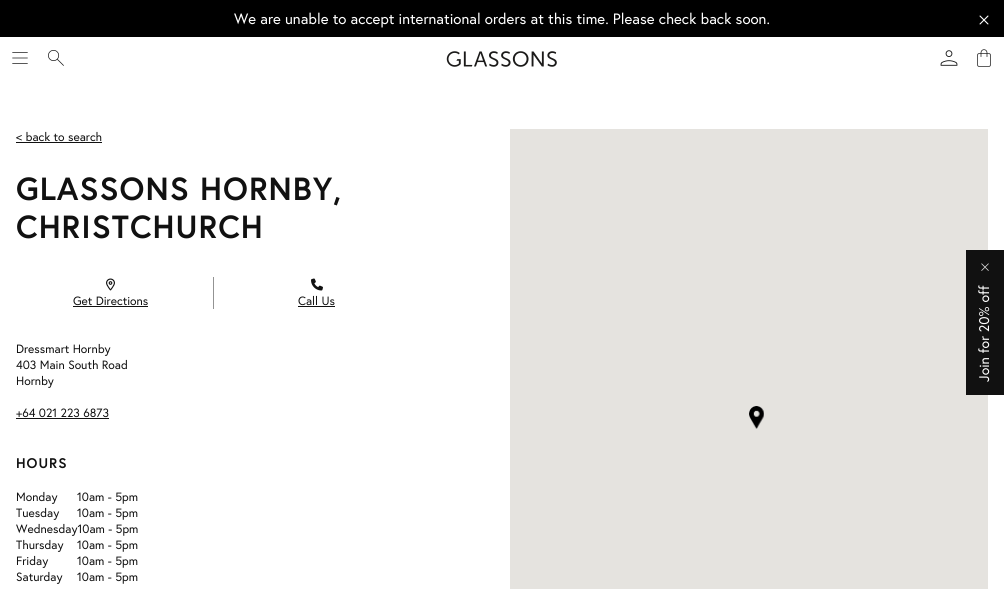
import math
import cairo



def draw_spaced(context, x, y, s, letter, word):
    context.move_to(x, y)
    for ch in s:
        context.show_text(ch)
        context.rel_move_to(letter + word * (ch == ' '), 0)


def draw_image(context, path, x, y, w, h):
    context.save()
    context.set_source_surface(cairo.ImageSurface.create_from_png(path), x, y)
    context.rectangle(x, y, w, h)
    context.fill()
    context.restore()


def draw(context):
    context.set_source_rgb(1, 1, 1)
    context.paint()
    context.set_source_rgb(0, 0, 0)
    context.rectangle(0, 0, 1004, 37)
    context.fill()
    draw_image(context, "images/1.png", 979, 15, 10, 10)
    draw_image(context, "images/2.png", 12, 52, 16, 12)
    draw_image(context, "images/3.png", 48, 50, 16, 16)
    draw_image(context, "images/4.png", 446, 51, 111, 16)
    draw_image(context, "images/5.png", 940, 50, 18, 16)
    draw_image(context, "images/6.png", 977, 49, 14, 18)
    context.set_source_rgb(17 / 255, 17 / 255, 17 / 255)
    context.rectangle(16, 142, 86, 1)
    context.fill()
    context.set_source_rgb(147 / 255, 147 / 255, 147 / 255)
    context.rectangle(213, 277, 1, 32)
    context.fill()
    draw_image(context, "images/7.png", 106, 278, 9, 13)
    context.set_source_rgb(17 / 255, 17 / 255, 17 / 255)
    context.rectangle(73, 306, 75, 1)
    context.fill()
    draw_image(context, "images/8.png", 311, 278, 12, 13)
    context.rectangle(298, 306, 37, 1)
    context.fill()
    context.rectangle(16, 418, 93, 1)
    context.fill()
    context.set_source_rgb(229 / 255, 227 / 255, 223 / 255)
    context.rectangle(510, 129, 478, 460)
    context.fill()
    draw_image(context, "images/9.png", 749, 406, 15, 23)
    context.set_source_rgb(17 / 255, 17 / 255, 17 / 255)
    context.rectangle(966, 250, 38, 145)
    context.fill()
    draw_image(context, "images/10.png", 981, 263, 8, 8)
    context.select_font_face("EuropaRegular")
    context.set_font_size(15)
    context.set_source_rgb(1, 1, 1)
    context.move_to(234, 24)
    context.show_text("We are unable to accept international orders at this time. Please check back soon.")
    context.set_font_size(12)
    context.set_source_rgb(17 / 255, 17 / 255, 17 / 255)
    context.move_to(16, 141)
    context.show_text("< back to search")
    context.select_font_face("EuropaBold", cairo.FontSlant.NORMAL, cairo.FontWeight.BOLD)
    context.set_font_size(32)
    draw_spaced(context, 16, 200, "GLASSONS HORNBY,", 1, 0)
    draw_spaced(context, 16, 238, "CHRISTCHURCH", 1, 0)
    context.select_font_face("EuropaRegular")
    context.set_font_size(12)
    context.move_to(73, 305)
    context.show_text("Get Directions")
    context.move_to(298, 305)
    context.show_text("Call Us")
    context.move_to(16, 353)
    context.show_text("Dressmart Hornby")
    context.move_to(16, 369)
    context.show_text("403 Main South Road")
    context.move_to(16, 385)
    context.show_text("Hornby")
    context.move_to(16, 417)
    context.show_text("+64 021 223 6873")
    context.select_font_face("EuropaBold", cairo.FontSlant.NORMAL, cairo.FontWeight.BOLD)
    context.set_font_size(14)
    draw_spaced(context, 16, 468, "HOURS", 1, 0)
    context.select_font_face("EuropaRegular")
    context.set_font_size(12)
    context.move_to(16, 501)
    context.show_text("Monday")
    context.move_to(77, 501)
    context.show_text("10am - 5pm")
    context.move_to(16, 517)
    context.show_text("Tuesday")
    context.move_to(77, 517)
    context.show_text("10am - 5pm")
    context.move_to(16, 533)
    context.show_text("Wednesday10am - 5pm")
    context.move_to(16, 549)
    context.show_text("Thursday")
    context.move_to(77, 549)
    context.show_text("10am - 5pm")
    context.move_to(16, 565)
    context.show_text("Friday")
    context.move_to(77, 565)
    context.show_text("10am - 5pm")
    context.move_to(16, 581)
    context.show_text("Saturday")
    context.move_to(77, 581)
    context.show_text("10am - 5pm")
    context.set_font_size(14)
    context.set_source_rgb(1, 1, 1)
    context.save()
    context.translate(989, 382)
    context.rotate(-90 * math.pi / 180)
    context.move_to(0, 0)
    context.show_text("Join for 20% off")
    context.restore()


surface = cairo.ImageSurface(cairo.Format.RGB24, 1004, 589)
context = cairo.Context(surface)
options = cairo.FontOptions()
options.set_hint_metrics(cairo.HintMetrics.OFF)
options.set_hint_style(cairo.HintStyle.NONE)
context.set_font_options(options)
context.set_miter_limit(4)
draw(context)
surface.write_to_png("out.png")
